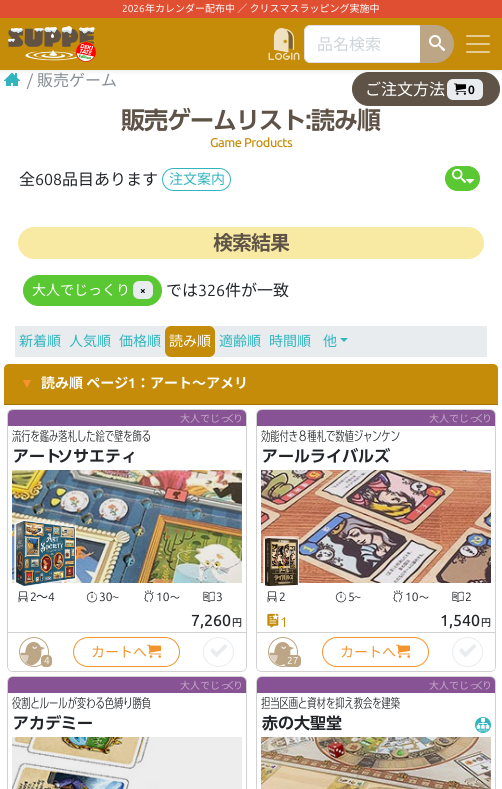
import math
import cairo



def draw_spaced(context, x, y, s, letter, word):
    context.move_to(x, y)
    for ch in s:
        context.show_text(ch)
        context.rel_move_to(letter + word * (ch == ' '), 0)


def rounded_rect(context, x, y, w, h, r):
    context.new_sub_path()
    for i, (u, v) in enumerate([(x + w - r, y + h - r), (x + r, y + h - r), (x + r, y + r), (x + w - r, y + r)]):
        context.arc(u, v, r, i * math.pi / 2, (i + 1) * math.pi / 2)
    context.close_path()


def draw_shadow(context, x, y, w, h, r, blur, alpha):
    context.push_group_with_content(cairo.Content.ALPHA)
    context.set_operator(cairo.Operator.SOURCE)
    for i in range(15, -16, -2):
        e = blur * i / 6
        if min(w, h) + 2 * e > 0:
            context.set_source_rgba(0, 0, 0, alpha * math.erfc((i - 1) / 8.5) / 2)
            rounded_rect(context, x - e, y - e, w + 2 * e, h + 2 * e, max(0, min(r + e + blur * .6, min(w, h) / 2 + e)))
            context.fill()
    context.mask(context.pop_group())


def draw_image(context, path, x, y, w, h):
    context.save()
    context.set_source_surface(cairo.ImageSurface.create_from_png(path), x, y)
    context.rectangle(x, y, w, h)
    context.fill()
    context.restore()


def draw(context):
    context.set_source_rgb(1, 1, 1)
    context.paint()
    draw_image(context, "images/5.png", 4, 72, 16, 14)
    context.set_source_rgb(94 / 255, 83 / 255, 70 / 255)
    rounded_rect(context, 352.5, 72.5, 147, 33, 16.5)
    context.fill_preserve()
    context.set_line_width(1)
    context.stroke()
    context.set_source_rgb(0, 0, 0)
    draw_shadow(context, 0, 2, 502, 70, 0, 2, 0.07)
    context.set_source_rgb(225 / 255, 79 / 255, 50 / 255)
    context.rectangle(0, 0, 502, 18)
    context.fill()
    context.set_source_rgb(196 / 255, 140 / 255, 8 / 255)
    context.rectangle(0, 18, 502, 52)
    context.fill()
    draw_image(context, "images/1.png", 8, 26, 88, 36)
    draw_image(context, "images/2.png", 268, 28, 32, 32)
    context.set_source_rgb(1, 1, 1)
    context.new_path()
    context.move_to(310, 25.5)
    context.line_to(420.5, 25.5)
    context.line_to(420.5, 62.5)
    context.line_to(310, 62.5)
    context.curve_to(307, 62.5, 304.5, 60, 304.5, 57)
    context.line_to(304.5, 31)
    context.curve_to(304.5, 28, 307, 25.5, 310, 25.5)
    context.close_path()
    context.fill_preserve()
    context.set_source_rgb(222 / 255, 226 / 255, 230 / 255)
    context.stroke()
    context.set_source_rgb(188 / 255, 166 / 255, 133 / 255)
    context.new_path()
    context.move_to(420.5, 25.5)
    context.line_to(435, 25.5)
    context.curve_to(445, 25.5, 453.5, 34, 453.5, 44)
    context.curve_to(453.5, 54, 445, 62.5, 435, 62.5)
    context.line_to(420.5, 62.5)
    context.close_path()
    context.fill_preserve()
    context.stroke()
    draw_image(context, "images/3.png", 429, 35, 16, 16)
    draw_image(context, "images/4.png", 466, 35, 24, 18)
    context.set_source_rgb(233 / 255, 236 / 255, 239 / 255)
    rounded_rect(context, 447, 79, 36, 21, 6)
    context.fill()
    draw_image(context, "images/6.png", 454, 83, 12, 12)
    rounded_rect(context, 162.5, 168.5, 68, 22, 11)
    context.set_source_rgb(50 / 255, 180 / 255, 190 / 255)
    context.stroke()
    context.set_source_rgb(90 / 255, 200 / 255, 50 / 255)
    rounded_rect(context, 445.5, 166.5, 34, 24, 12)
    context.fill_preserve()
    context.stroke()
    draw_image(context, "images/7.png", 452, 168, 14, 15)
    draw_image(context, "images/8.png", 466, 179, 8, 5)
    context.set_source_rgb(248 / 255, 234 / 255, 163 / 255)
    rounded_rect(context, 18, 227, 466, 32, 16)
    context.fill()
    context.set_source_rgb(90 / 255, 200 / 255, 50 / 255)
    rounded_rect(context, 23.5, 275.5, 138, 30, 15)
    context.fill_preserve()
    context.stroke()
    context.set_source_rgb(233 / 255, 236 / 255, 239 / 255)
    rounded_rect(context, 133, 281, 20, 18, 6)
    context.fill()
    context.rectangle(15, 326, 472, 31)
    context.fill()
    context.set_source_rgb(196 / 255, 140 / 255, 8 / 255)
    rounded_rect(context, 165, 326, 50, 31, 6)
    context.fill()
    context.set_source_rgb(50 / 255, 180 / 255, 190 / 255)
    context.new_path()
    context.move_to(340, 338)
    context.line_to(348, 338)
    context.line_to(344, 342)
    context.close_path()
    context.fill()
    context.set_source_rgb(196 / 255, 140 / 255, 8 / 255)
    context.new_path()
    context.move_to(9, 364)
    context.line_to(493, 364)
    context.curve_to(496, 364, 498, 366, 498, 369)
    context.line_to(498, 405)
    context.line_to(4, 405)
    context.line_to(4, 369)
    context.curve_to(4, 366, 6, 364, 9, 364)
    context.close_path()
    context.fill()
    context.set_source_rgb(162 / 255, 115 / 255, 7 / 255)
    context.rectangle(4, 404, 494, 1)
    context.fill()
    rounded_rect(context, 7.5, 409.5, 239, 262, 5.5)
    context.set_source_rgb(210 / 255, 210 / 255, 210 / 255)
    context.stroke()
    context.set_source_rgb(136 / 255, 83 / 255, 148 / 255)
    context.new_path()
    context.move_to(13, 410)
    context.line_to(241, 410)
    context.curve_to(244, 410, 246, 412, 246, 415)
    context.line_to(246, 426)
    context.line_to(8, 426)
    context.line_to(8, 415)
    context.curve_to(8, 412, 10, 410, 13, 410)
    context.close_path()
    context.fill()
    draw_image(context, "images/9.png", 12, 470, 230, 113)
    draw_image(context, "images/10.png", 14, 519, 62, 67)
    draw_image(context, "images/11.png", 18, 591, 10, 12)
    draw_image(context, "images/12.png", 86, 591, 12, 12)
    draw_image(context, "images/13.png", 144, 590, 10, 13)
    draw_image(context, "images/14.png", 203, 591, 12, 11)
    context.set_source_rgb(1, 1, 1)
    context.new_path()
    context.move_to(8, 632)
    context.line_to(246, 632)
    context.line_to(246, 666)
    context.curve_to(246, 669, 244, 671, 241, 671)
    context.line_to(13, 671)
    context.curve_to(10, 671, 8, 669, 8, 666)
    context.close_path()
    context.fill()
    context.set_source_rgb(210 / 255, 210 / 255, 210 / 255)
    context.rectangle(8, 632, 238, 1)
    context.fill()
    rounded_rect(context, 73.5, 637.5, 106, 29, 14.5)
    context.set_source_rgb(244 / 255, 148 / 255, 46 / 255)
    context.stroke()
    draw_image(context, "images/15.png", 147, 644, 14, 14)
    rounded_rect(context, 203.5, 637.5, 30, 29, 14.5)
    context.set_source_rgb(233 / 255, 236 / 255, 239 / 255)
    context.stroke()
    context.new_path()
    context.move_to(225, 644)
    context.line_to(216.5, 652)
    context.line_to(212.5, 648)
    context.line_to(210, 651)
    context.line_to(216.5, 657.5)
    context.line_to(227.5, 646.5)
    context.close_path()
    context.fill()
    context.arc(34, 652, 14.5, 0, 2 * math.pi)
    context.set_source_rgb(188 / 255, 166 / 255, 133 / 255)
    context.stroke()
    draw_image(context, "images/16.png", 20, 642, 25, 24)
    rounded_rect(context, 41, 655, 11, 12, 4)
    context.fill()
    rounded_rect(context, 256.5, 409.5, 239, 262, 5.5)
    context.set_source_rgb(210 / 255, 210 / 255, 210 / 255)
    context.stroke()
    context.set_source_rgb(136 / 255, 83 / 255, 148 / 255)
    context.new_path()
    context.move_to(262, 410)
    context.line_to(490, 410)
    context.curve_to(493, 410, 495, 412, 495, 415)
    context.line_to(495, 426)
    context.line_to(257, 426)
    context.line_to(257, 415)
    context.curve_to(257, 412, 259, 410, 262, 410)
    context.close_path()
    context.fill()
    draw_image(context, "images/17.png", 261, 470, 230, 113)
    draw_image(context, "images/18.png", 263, 536, 36, 50)
    draw_image(context, "images/11.png", 267, 591, 10, 12)
    draw_image(context, "images/12.png", 335, 591, 12, 12)
    draw_image(context, "images/13.png", 393, 590, 10, 13)
    draw_image(context, "images/14.png", 452, 591, 12, 11)
    draw_image(context, "images/19.png", 267, 613, 12, 15)
    context.set_source_rgb(1, 1, 1)
    context.new_path()
    context.move_to(257, 632)
    context.line_to(495, 632)
    context.line_to(495, 666)
    context.curve_to(495, 669, 493, 671, 490, 671)
    context.line_to(262, 671)
    context.curve_to(259, 671, 257, 669, 257, 666)
    context.close_path()
    context.fill()
    context.set_source_rgb(210 / 255, 210 / 255, 210 / 255)
    context.rectangle(257, 632, 238, 1)
    context.fill()
    rounded_rect(context, 322.5, 637.5, 106, 29, 14.5)
    context.set_source_rgb(244 / 255, 148 / 255, 46 / 255)
    context.stroke()
    draw_image(context, "images/15.png", 396, 644, 14, 14)
    rounded_rect(context, 452.5, 637.5, 30, 29, 14.5)
    context.set_source_rgb(233 / 255, 236 / 255, 239 / 255)
    context.stroke()
    context.new_path()
    context.move_to(474, 644)
    context.line_to(465.5, 652)
    context.line_to(461.5, 648)
    context.line_to(459, 651)
    context.line_to(465.5, 657.5)
    context.line_to(476.5, 646.5)
    context.close_path()
    context.fill()
    context.arc(283, 652, 14.5, 0, 2 * math.pi)
    context.set_source_rgb(188 / 255, 166 / 255, 133 / 255)
    context.stroke()
    draw_image(context, "images/16.png", 269, 642, 25, 24)
    rounded_rect(context, 284, 655, 17, 12, 4)
    context.fill()
    rounded_rect(context, 7.5, 676.5, 239, 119, 5.5)
    context.set_source_rgb(210 / 255, 210 / 255, 210 / 255)
    context.stroke()
    context.set_source_rgb(136 / 255, 83 / 255, 148 / 255)
    context.new_path()
    context.move_to(13, 677)
    context.line_to(241, 677)
    context.curve_to(244, 677, 246, 679, 246, 682)
    context.line_to(246, 693)
    context.line_to(8, 693)
    context.line_to(8, 682)
    context.curve_to(8, 679, 10, 677, 13, 677)
    context.close_path()
    context.fill()
    draw_image(context, "images/20.png", 12, 737, 230, 52)
    rounded_rect(context, 256.5, 676.5, 239, 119, 5.5)
    context.set_source_rgb(210 / 255, 210 / 255, 210 / 255)
    context.stroke()
    context.set_source_rgb(136 / 255, 83 / 255, 148 / 255)
    context.new_path()
    context.move_to(262, 677)
    context.line_to(490, 677)
    context.curve_to(493, 677, 495, 679, 495, 682)
    context.line_to(495, 693)
    context.line_to(257, 693)
    context.line_to(257, 682)
    context.curve_to(257, 679, 259, 677, 262, 677)
    context.close_path()
    context.fill()
    draw_image(context, "images/21.png", 475, 717, 16, 16)
    draw_image(context, "images/22.png", 261, 737, 230, 52)
    context.select_font_face("Ubuntu")
    context.set_font_size(10)
    context.set_source_rgb(1, 1, 1)
    context.move_to(122, 12)
    context.show_text("2026")
    context.select_font_face("Noto Sans JP")
    context.move_to(145, 12)
    context.show_text("年カレンダー配布中 ／ クリスマスラッピング実施中")
    context.set_font_size(16)
    context.set_source_rgb(206 / 255, 212 / 255, 218 / 255)
    context.move_to(317, 50)
    context.show_text("品名検索")
    context.select_font_face("Ubuntu")
    context.set_source_rgb(134 / 255, 142 / 255, 150 / 255)
    context.move_to(27, 86)
    context.show_text("/")
    context.select_font_face("Noto Sans JP")
    context.move_to(37, 86)
    context.show_text("販売ゲーム")
    context.set_source_rgb(1, 1, 1)
    context.move_to(365, 95)
    context.show_text("ご注文方法")
    context.select_font_face("Ubuntu", cairo.FontSlant.NORMAL, cairo.FontWeight.BOLD)
    context.set_font_size(12)
    context.set_source_rgb(0, 0, 0)
    context.move_to(468, 94)
    context.show_text("0")
    context.select_font_face("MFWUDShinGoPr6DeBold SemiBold")
    context.set_font_size(24)
    context.set_source_rgb(94 / 255, 83 / 255, 70 / 255)
    draw_spaced(context, 121, 129, "販売ゲームリスト:読み順", -1, 0)
    context.select_font_face("Ubuntu Medium")
    context.set_font_size(12.75)
    context.set_source_rgb(196 / 255, 140 / 255, 8 / 255)
    draw_spaced(context, 210, 147, "Game Products", -0.5, 0)
    context.select_font_face("Noto Sans JP")
    context.set_font_size(16)
    context.set_source_rgb(33 / 255, 37 / 255, 41 / 255)
    context.move_to(19, 185)
    context.show_text("全")
    context.select_font_face("Ubuntu")
    context.move_to(35, 185)
    context.show_text("608")
    context.select_font_face("Noto Sans JP")
    context.move_to(62, 185)
    context.show_text("品目あります")
    context.set_font_size(14)
    context.set_source_rgb(50 / 255, 180 / 255, 190 / 255)
    context.move_to(169, 184)
    context.show_text("注文案内")
    context.select_font_face("Noto Sans JP", cairo.FontSlant.NORMAL, cairo.FontWeight.BOLD)
    context.set_font_size(20)
    context.set_source_rgb(94 / 255, 83 / 255, 70 / 255)
    draw_spaced(context, 213, 250, "検索結果", -1, 0)
    context.select_font_face("Noto Sans JP")
    context.set_font_size(14)
    context.set_source_rgb(1, 1, 1)
    context.move_to(32, 295)
    context.show_text("大人でじっくり")
    context.select_font_face("Ubuntu", cairo.FontSlant.NORMAL, cairo.FontWeight.BOLD)
    context.set_font_size(10)
    context.set_source_rgb(0, 0, 0)
    context.move_to(140, 294)
    context.show_text("×")
    context.select_font_face("Noto Sans JP")
    context.set_font_size(16)
    context.set_source_rgb(33 / 255, 37 / 255, 41 / 255)
    context.move_to(166, 296)
    context.show_text("では")
    context.select_font_face("Ubuntu")
    context.move_to(198, 296)
    context.show_text("326")
    context.select_font_face("Noto Sans JP")
    context.move_to(225, 296)
    context.show_text("件が一致")
    context.set_font_size(14)
    context.set_source_rgb(50 / 255, 180 / 255, 190 / 255)
    context.move_to(19, 346)
    context.show_text("新着順")
    context.move_to(69, 346)
    context.show_text("人気順")
    context.move_to(119, 346)
    context.show_text("価格順")
    context.set_source_rgb(1, 1, 1)
    context.move_to(169, 346)
    context.show_text("読み順")
    context.set_source_rgb(50 / 255, 180 / 255, 190 / 255)
    context.move_to(219, 346)
    context.show_text("適齢順")
    context.move_to(269, 346)
    context.show_text("時間順")
    context.move_to(323, 346)
    context.show_text("他")
    context.select_font_face("Liberation Sans", cairo.FontSlant.NORMAL, cairo.FontWeight.BOLD)
    context.set_source_rgb(244 / 255, 148 / 255, 46 / 255)
    context.move_to(20, 388)
    context.show_text("▼")
    context.select_font_face("Noto Sans JP", cairo.FontSlant.NORMAL, cairo.FontWeight.BOLD)
    context.set_source_rgb(1, 1, 1)
    context.move_to(41, 388)
    context.show_text("読み順 ページ")
    context.select_font_face("Ubuntu", cairo.FontSlant.NORMAL, cairo.FontWeight.BOLD)
    context.move_to(128, 388)
    context.show_text("1")
    context.select_font_face("Noto Sans JP", cairo.FontSlant.NORMAL, cairo.FontWeight.BOLD)
    context.move_to(136, 388)
    context.show_text("：アート〜アメリ")
    context.select_font_face("Noto Sans JP")
    context.set_font_size(10)
    context.set_source_rgb(196 / 255, 169 / 255, 202 / 255)
    context.move_to(180, 422)
    context.show_text("大人でじっ")
    context.move_to(226, 422)
    context.show_text("く")
    context.move_to(233, 422)
    context.show_text("り")
    context.save()
    context.rectangle(10, 430, 236, 13)
    context.clip()
    context.select_font_face("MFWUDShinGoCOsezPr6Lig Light")
    context.set_font_size(13.25)
    context.set_source_rgb(33 / 255, 37 / 255, 41 / 255)
    context.move_to(12, 441)
    context.show_text("流行を鑑み落札した絵で壁を飾る")
    context.restore()
    context.select_font_face("MFWUDShinGoPr6DeBold SemiBold")
    context.set_font_size(16)
    context.set_source_rgb(33 / 255, 37 / 255, 41 / 255)
    context.move_to(13, 462)
    context.show_text("アート")
    context.move_to(57, 462)
    context.show_text("ソサエティ")
    context.select_font_face("Ubuntu")
    context.set_font_size(12)
    context.move_to(30, 601)
    context.show_text("2")
    context.select_font_face("Noto Sans JP")
    context.move_to(36, 601)
    context.show_text("〜")
    context.select_font_face("Ubuntu")
    context.move_to(48, 601)
    context.show_text("4")
    context.move_to(99, 601)
    context.show_text("30")
    context.select_font_face("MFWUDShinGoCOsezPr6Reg")
    context.set_font_size(10)
    context.move_to(112, 601)
    context.show_text("〜")
    context.select_font_face("Ubuntu")
    context.set_font_size(12)
    context.move_to(156, 601)
    context.show_text("10")
    context.select_font_face("Noto Sans JP")
    context.set_font_size(10)
    context.move_to(170, 601)
    context.show_text("〜")
    context.select_font_face("Ubuntu")
    context.set_font_size(12)
    context.move_to(216, 601)
    context.show_text("3")
    context.select_font_face("Ubuntu Medium")
    context.set_font_size(16)
    context.move_to(191, 626)
    context.show_text("7,260")
    context.select_font_face("Noto Sans JP Medium")
    context.set_font_size(10)
    context.move_to(232, 626)
    context.show_text("円")
    context.select_font_face("Noto Sans JP")
    context.set_font_size(14)
    context.set_source_rgb(244 / 255, 148 / 255, 46 / 255)
    context.move_to(91, 657)
    context.show_text("カートへ")
    context.select_font_face("Ubuntu")
    context.set_font_size(10)
    context.set_source_rgb(1, 1, 1)
    context.move_to(44, 664)
    context.show_text("4")
    context.select_font_face("Noto Sans JP")
    context.set_source_rgb(196 / 255, 169 / 255, 202 / 255)
    context.move_to(429, 422)
    context.show_text("大人でじっ")
    context.move_to(475, 422)
    context.show_text("く")
    context.move_to(482, 422)
    context.show_text("り")
    context.save()
    context.rectangle(259, 430, 236, 13)
    context.clip()
    context.select_font_face("MFWUDShinGoCOsezPr6Lig Light")
    context.set_font_size(13.25)
    context.set_source_rgb(33 / 255, 37 / 255, 41 / 255)
    context.move_to(261, 441)
    context.show_text("効能付き８種札で数値ジャンケン")
    context.restore()
    context.select_font_face("MFWUDShinGoPr6DeBold SemiBold")
    context.set_font_size(16)
    context.set_source_rgb(33 / 255, 37 / 255, 41 / 255)
    context.move_to(262, 462)
    context.show_text("アールライバルズ")
    context.select_font_face("Ubuntu")
    context.set_font_size(12)
    context.move_to(279, 601)
    context.show_text("2")
    context.move_to(348, 601)
    context.show_text("5")
    context.select_font_face("MFWUDShinGoCOsezPr6Reg")
    context.set_font_size(10)
    context.move_to(354, 601)
    context.show_text("〜")
    context.select_font_face("Ubuntu")
    context.set_font_size(12)
    context.move_to(405, 601)
    context.show_text("10")
    context.select_font_face("Noto Sans JP")
    context.set_font_size(10)
    context.move_to(419, 601)
    context.show_text("〜")
    context.select_font_face("Ubuntu")
    context.set_font_size(12)
    context.move_to(465, 601)
    context.show_text("2")
    context.set_font_size(14)
    context.set_source_rgb(196 / 255, 140 / 255, 8 / 255)
    context.move_to(280, 627)
    context.show_text("1")
    context.select_font_face("Ubuntu Medium")
    context.set_font_size(16)
    context.set_source_rgb(33 / 255, 37 / 255, 41 / 255)
    context.move_to(440, 626)
    context.show_text("1,540")
    context.select_font_face("Noto Sans JP Medium")
    context.set_font_size(10)
    context.move_to(481, 626)
    context.show_text("円")
    context.select_font_face("Noto Sans JP")
    context.set_font_size(14)
    context.set_source_rgb(244 / 255, 148 / 255, 46 / 255)
    context.move_to(340, 657)
    context.show_text("カートへ")
    context.select_font_face("Ubuntu")
    context.set_font_size(10)
    context.set_source_rgb(1, 1, 1)
    context.move_to(287, 664)
    context.show_text("27")
    context.select_font_face("Noto Sans JP")
    context.set_source_rgb(196 / 255, 169 / 255, 202 / 255)
    context.move_to(180, 689)
    context.show_text("大人でじっ")
    context.move_to(226, 689)
    context.show_text("く")
    context.move_to(233, 689)
    context.show_text("り")
    context.save()
    context.rectangle(10, 697, 236, 13)
    context.clip()
    context.select_font_face("MFWUDShinGoCOsezPr6Lig Light")
    context.set_font_size(13.25)
    context.set_source_rgb(33 / 255, 37 / 255, 41 / 255)
    context.move_to(12, 708)
    context.show_text("役割とルールが変わる色縛り勝負")
    context.restore()
    context.select_font_face("MFWUDShinGoPr6DeBold SemiBold")
    context.set_font_size(16)
    context.set_source_rgb(33 / 255, 37 / 255, 41 / 255)
    context.move_to(13, 729)
    context.show_text("アカデミー")
    context.select_font_face("Noto Sans JP")
    context.set_font_size(10)
    context.set_source_rgb(196 / 255, 169 / 255, 202 / 255)
    context.move_to(429, 689)
    context.show_text("大人でじっ")
    context.move_to(475, 689)
    context.show_text("く")
    context.move_to(482, 689)
    context.show_text("り")
    context.save()
    context.rectangle(259, 697, 236, 13)
    context.clip()
    context.select_font_face("MFWUDShinGoCOsezPr6Lig Light")
    context.set_font_size(13.25)
    context.set_source_rgb(33 / 255, 37 / 255, 41 / 255)
    context.move_to(261, 708)
    context.show_text("担当区画と資材を抑え教会を建築")
    context.restore()
    context.select_font_face("MFWUDShinGoPr6DeBold SemiBold")
    context.set_font_size(16)
    context.set_source_rgb(33 / 255, 37 / 255, 41 / 255)
    context.move_to(262, 729)
    context.show_text("赤の大聖堂")


surface = cairo.ImageSurface(cairo.Format.RGB24, 502, 789)
context = cairo.Context(surface)
options = cairo.FontOptions()
options.set_hint_metrics(cairo.HintMetrics.OFF)
options.set_hint_style(cairo.HintStyle.NONE)
context.set_font_options(options)
context.set_miter_limit(4)
draw(context)
surface.write_to_png("out.png")
